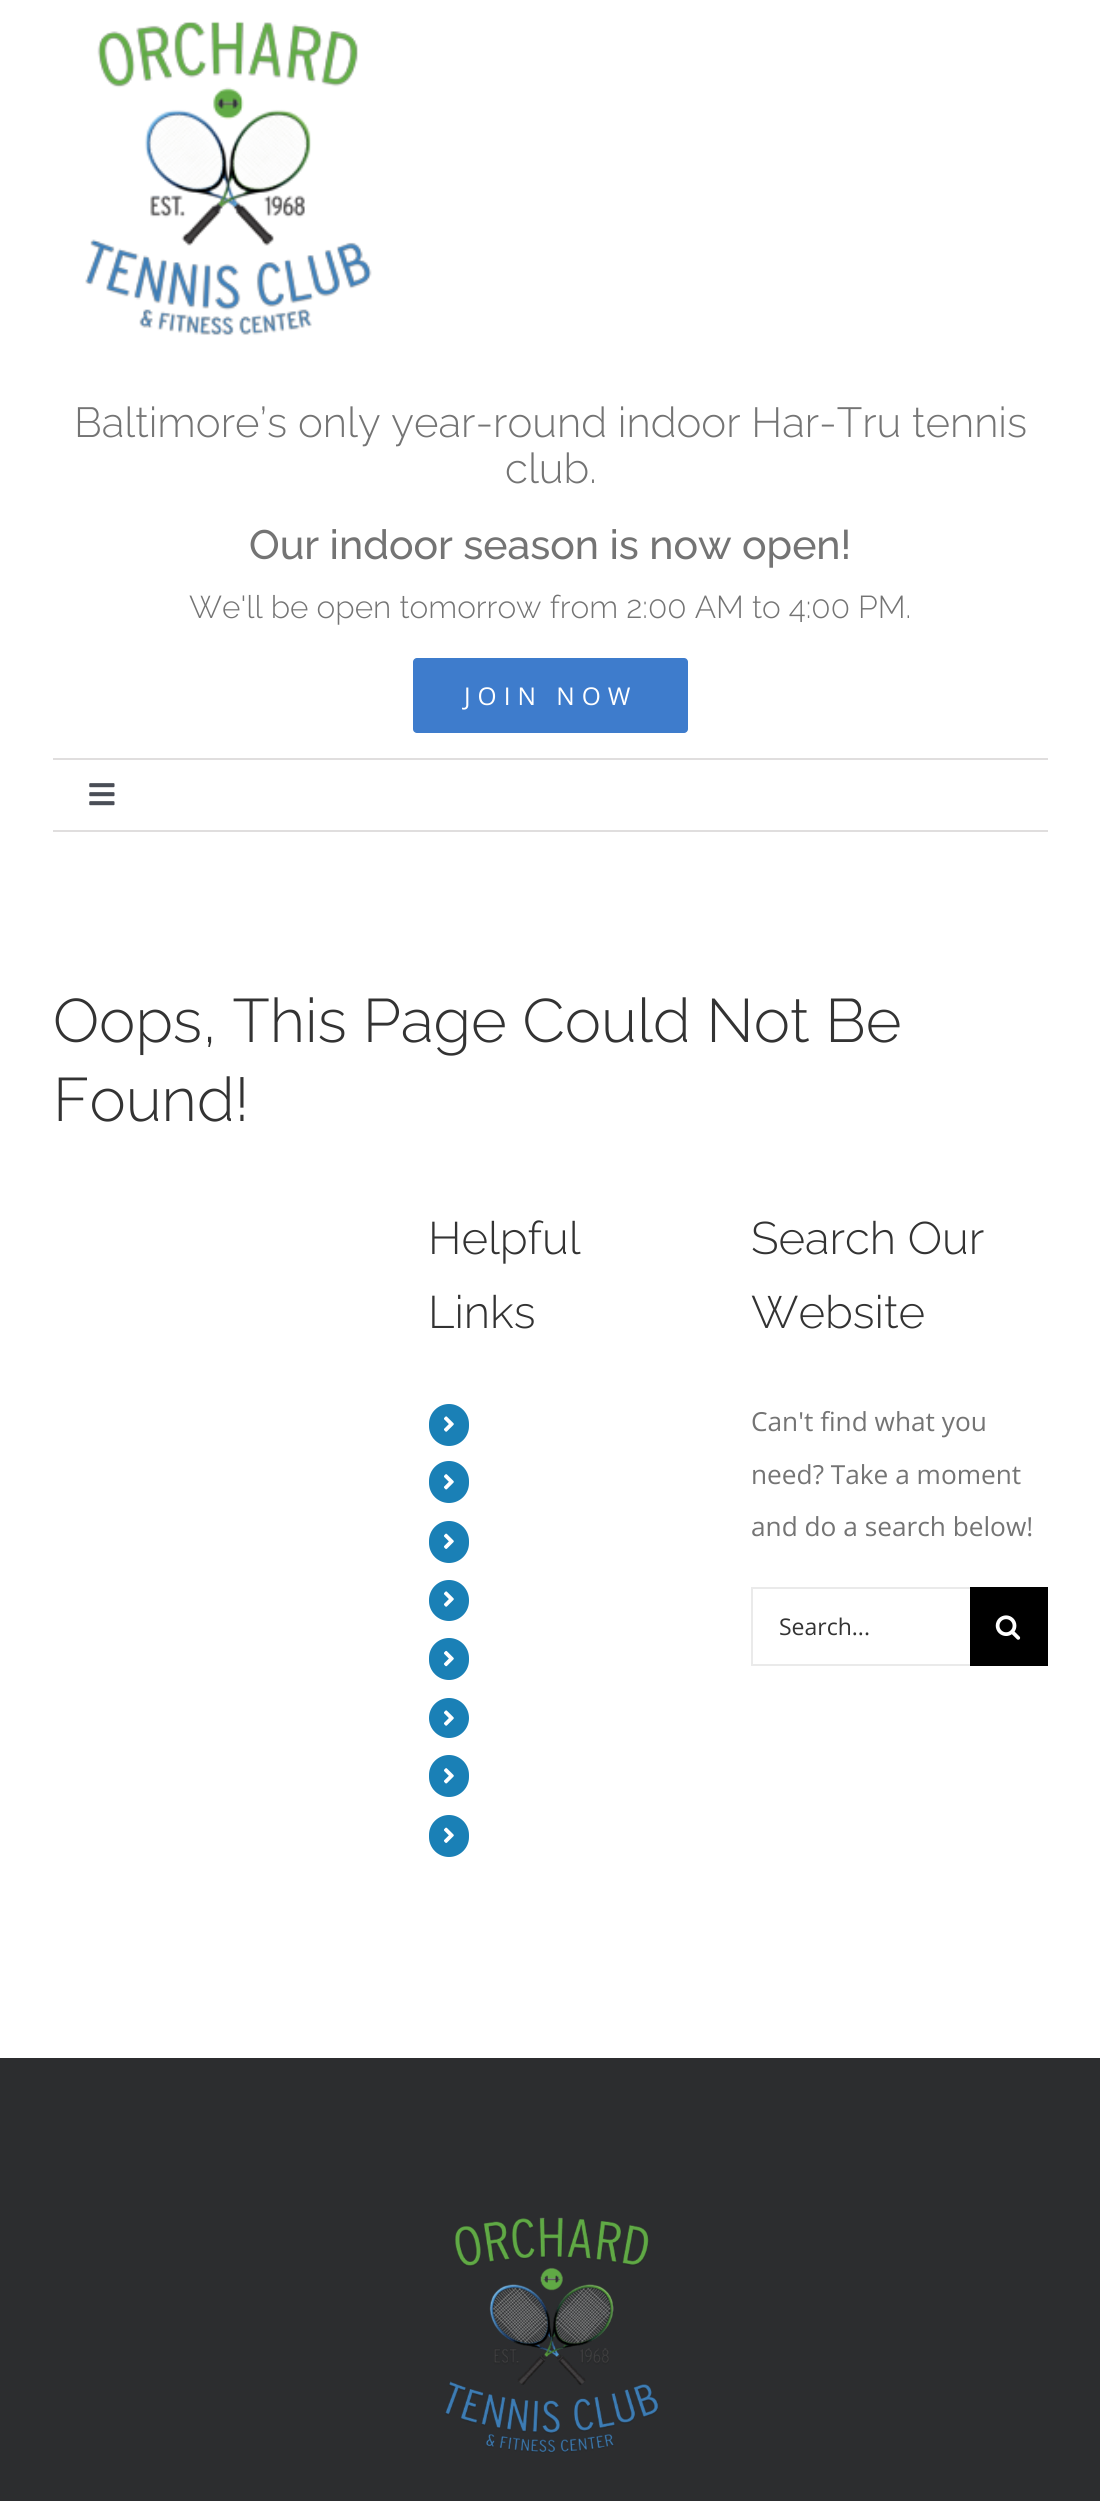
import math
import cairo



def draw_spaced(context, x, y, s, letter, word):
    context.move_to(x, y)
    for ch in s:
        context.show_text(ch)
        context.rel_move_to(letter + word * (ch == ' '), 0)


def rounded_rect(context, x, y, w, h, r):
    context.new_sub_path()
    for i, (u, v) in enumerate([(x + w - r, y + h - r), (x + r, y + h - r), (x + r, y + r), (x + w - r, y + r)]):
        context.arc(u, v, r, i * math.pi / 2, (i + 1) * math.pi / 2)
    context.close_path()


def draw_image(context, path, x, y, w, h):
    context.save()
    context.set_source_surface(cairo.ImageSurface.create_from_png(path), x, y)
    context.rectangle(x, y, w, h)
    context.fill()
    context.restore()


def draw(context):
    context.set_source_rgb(1, 1, 1)
    context.paint()
    draw_image(context, "images/1.png", 85, 21, 287, 315)
    context.set_source_rgb(62 / 255, 124 / 255, 204 / 255)
    rounded_rect(context, 413, 658, 275, 75, 4)
    context.fill()
    context.set_source_rgb(224 / 255, 222 / 255, 222 / 255)
    context.rectangle(53, 758, 995, 2)
    context.fill()
    context.rectangle(53, 830, 995, 2)
    context.fill()
    draw_image(context, "images/2.png", 89, 783, 26, 23)
    context.set_source_rgb(26 / 255, 128 / 255, 182 / 255)
    rounded_rect(context, 429, 1404, 40, 42, 20)
    context.fill()
    draw_image(context, "images/3.png", 444, 1416, 10, 16)
    rounded_rect(context, 429, 1461, 40, 42, 20)
    context.fill()
    draw_image(context, "images/4.png", 444, 1474, 10, 16)
    rounded_rect(context, 429, 1521, 40, 42, 20)
    context.fill()
    draw_image(context, "images/5.png", 444, 1533, 10, 16)
    rounded_rect(context, 429, 1580, 40, 41, 20)
    context.fill()
    draw_image(context, "images/3.png", 444, 1591, 10, 16)
    rounded_rect(context, 429, 1638, 40, 42, 20)
    context.fill()
    draw_image(context, "images/6.png", 444, 1650, 10, 17)
    context.arc(449, 1718, 20, 0, 2 * math.pi)
    context.fill()
    draw_image(context, "images/3.png", 444, 1710, 10, 16)
    rounded_rect(context, 429, 1755, 40, 42, 20)
    context.fill()
    draw_image(context, "images/4.png", 444, 1768, 10, 16)
    rounded_rect(context, 429, 1815, 40, 42, 20)
    context.fill()
    draw_image(context, "images/5.png", 444, 1827, 10, 16)
    context.set_source_rgb(234 / 255, 234 / 255, 234 / 255)
    context.rectangle(751, 1587, 219, 2)
    context.fill()
    context.rectangle(751, 1664, 219, 2)
    context.fill()
    context.rectangle(751, 1587, 2, 79)
    context.fill()
    context.set_source_rgb(0, 0, 0)
    context.rectangle(970, 1587, 78, 79)
    context.fill()
    draw_image(context, "images/7.png", 995, 1615, 26, 25)
    context.set_source_rgb(44 / 255, 45 / 255, 47 / 255)
    context.rectangle(0, 2058, 1100, 443)
    context.fill()
    draw_image(context, "images/8.png", 445, 2217, 213, 236)
    context.select_font_face("Raleway Light")
    context.set_font_size(42)
    context.set_source_rgb(116 / 255, 116 / 255, 116 / 255)
    context.move_to(74, 437)
    context.show_text("Baltimore’s only year-round indoor Har-Tru tennis")
    context.move_to(505, 483)
    context.show_text("club.")
    context.select_font_face("Raleway Medium")
    context.set_font_size(41)
    context.move_to(249, 559)
    context.show_text("Our indoor season is now open!")
    context.select_font_face("Raleway Light")
    context.set_font_size(31.6)
    context.move_to(189, 618)
    context.show_text("We'll be open tomorrow from 2:00 AM to 4:00 PM.")
    context.select_font_face("Open Sans")
    context.set_font_size(24.5)
    context.set_source_rgb(1, 1, 1)
    draw_spaced(context, 464, 705, "JOIN NOW", 7, 0)
    context.select_font_face("Raleway Light")
    context.set_font_size(61.25)
    context.set_source_rgb(51 / 255, 51 / 255, 51 / 255)
    context.move_to(53, 1042)
    context.show_text("Oops, This Page Could Not Be")
    context.move_to(53, 1121)
    context.show_text("Found!")
    context.set_font_size(45.5)
    context.move_to(428, 1254)
    context.show_text("Helpful")
    context.move_to(428, 1328)
    context.show_text("Links")
    context.move_to(751, 1254)
    context.show_text("Search Our")
    context.move_to(751, 1328)
    context.show_text("Website")
    context.select_font_face("Open Sans")
    context.set_font_size(26.25)
    context.set_source_rgb(116 / 255, 116 / 255, 116 / 255)
    context.move_to(751, 1431)
    context.show_text("Can't find what you")
    context.move_to(751, 1484)
    context.show_text("need? Take a moment")
    context.move_to(751, 1536)
    context.show_text("and do a search below!")
    context.set_font_size(23)
    context.set_source_rgb(51 / 255, 51 / 255, 51 / 255)
    context.move_to(779, 1635)
    context.show_text("Search...")


surface = cairo.ImageSurface(cairo.Format.RGB24, 1100, 2501)
context = cairo.Context(surface)
options = cairo.FontOptions()
options.set_hint_metrics(cairo.HintMetrics.OFF)
options.set_hint_style(cairo.HintStyle.NONE)
context.set_font_options(options)
context.set_miter_limit(4)
draw(context)
surface.write_to_png("out.png")
